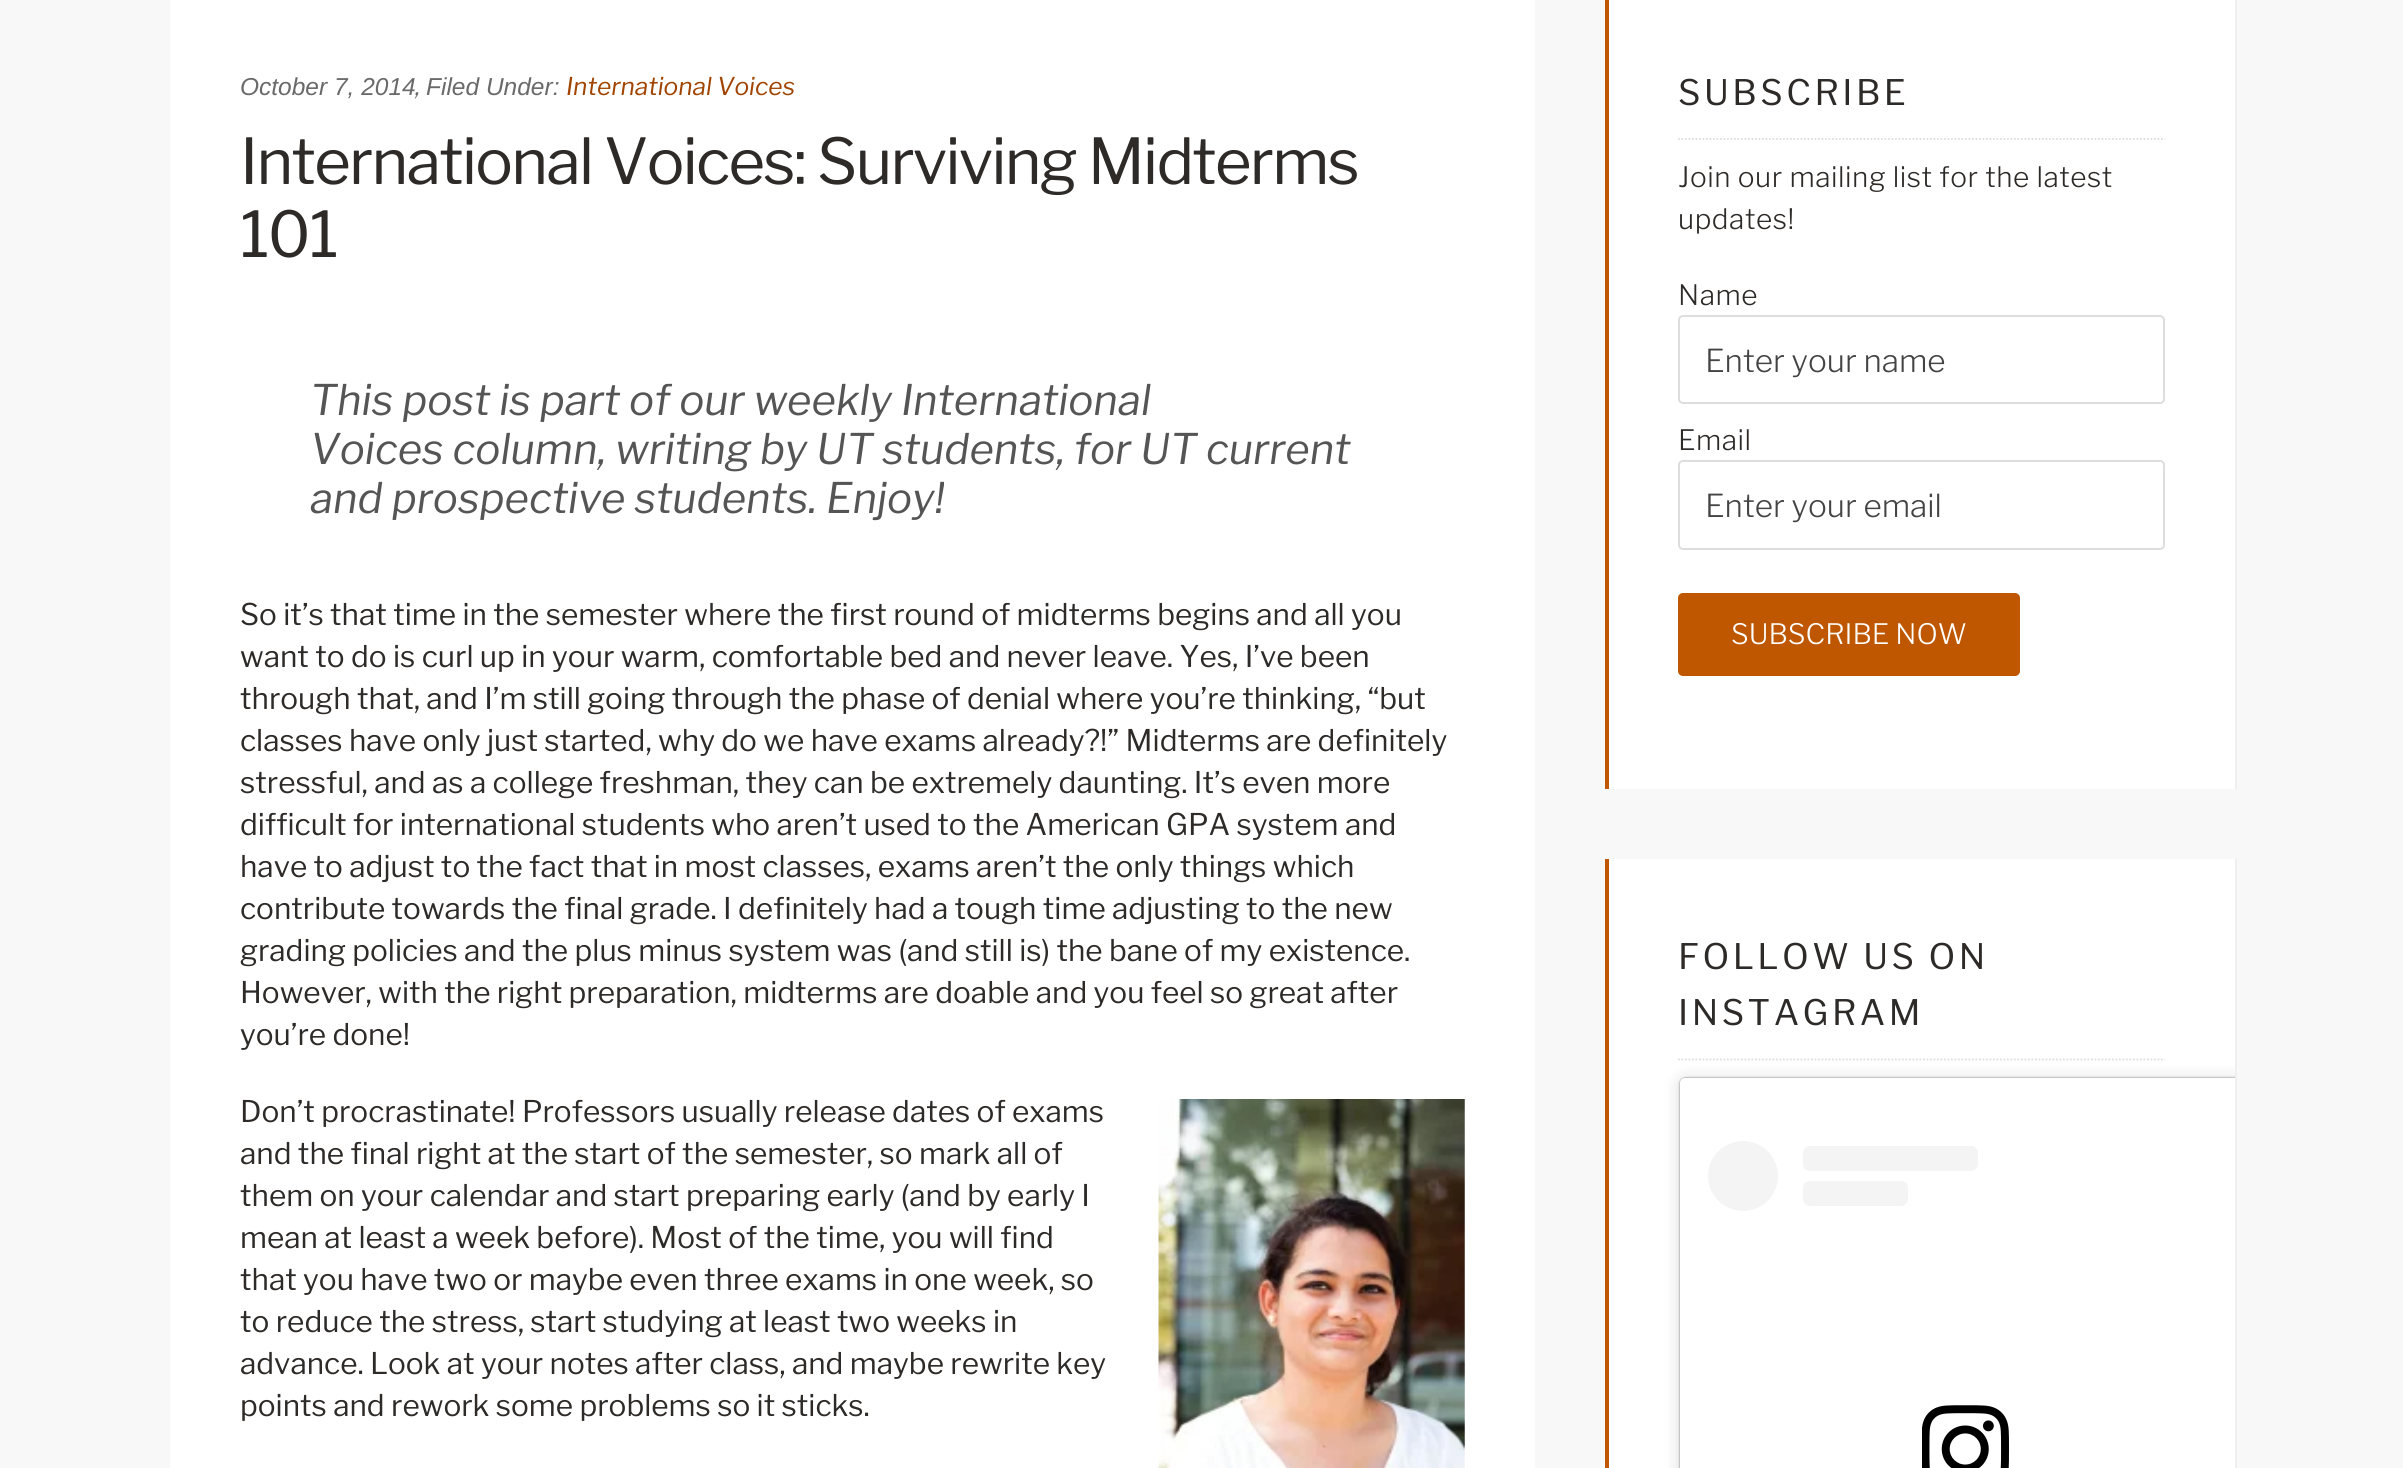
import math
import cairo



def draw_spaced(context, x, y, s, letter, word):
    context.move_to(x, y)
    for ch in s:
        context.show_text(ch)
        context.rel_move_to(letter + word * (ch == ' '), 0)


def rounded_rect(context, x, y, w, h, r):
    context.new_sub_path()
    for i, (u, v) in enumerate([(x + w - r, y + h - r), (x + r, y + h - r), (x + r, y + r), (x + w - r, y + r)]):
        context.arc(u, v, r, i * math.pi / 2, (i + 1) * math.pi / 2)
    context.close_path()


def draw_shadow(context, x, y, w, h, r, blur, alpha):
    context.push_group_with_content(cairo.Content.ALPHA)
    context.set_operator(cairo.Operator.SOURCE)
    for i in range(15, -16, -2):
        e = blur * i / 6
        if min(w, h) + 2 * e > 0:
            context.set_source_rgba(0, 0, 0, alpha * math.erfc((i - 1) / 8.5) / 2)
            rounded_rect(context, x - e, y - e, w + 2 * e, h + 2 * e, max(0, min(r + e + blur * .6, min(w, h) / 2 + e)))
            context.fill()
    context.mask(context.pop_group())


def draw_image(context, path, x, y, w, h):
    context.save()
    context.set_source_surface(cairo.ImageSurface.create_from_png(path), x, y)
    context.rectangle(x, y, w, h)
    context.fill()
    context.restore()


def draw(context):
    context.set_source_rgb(248 / 255, 248 / 255, 248 / 255)
    context.paint()
    context.set_source_rgb(1, 1, 1)
    context.rectangle(170, 0, 1365, 1468)
    context.fill()
    draw_image(context, "images/1.png", 1158, 1099, 307, 369)
    context.set_source_rgb(239 / 255, 239 / 255, 239 / 255)
    context.rectangle(2235, 0, 2, 789)
    context.fill()
    context.set_source_rgb(1, 1, 1)
    context.rectangle(1609, 0, 626, 789)
    context.fill()
    context.set_source_rgb(191 / 255, 87 / 255, 0)
    context.rectangle(1605, 0, 4, 789)
    context.fill()
    context.new_path()
    context.move_to(1678, 139)
    context.line_to(2165, 139)
    context.set_source_rgb(221 / 255, 221 / 255, 221 / 255)
    context.set_line_width(1.8)
    context.set_dash([1.75, 1.75])
    context.stroke()
    rounded_rect(context, 1679, 316, 485, 87, 4)
    context.set_line_width(2)
    context.set_dash([])
    context.stroke()
    rounded_rect(context, 1679, 461, 485, 88, 4)
    context.stroke()
    context.set_source_rgb(191 / 255, 87 / 255, 0)
    rounded_rect(context, 1678, 593, 342, 83, 5)
    context.fill()
    context.set_source_rgb(239 / 255, 239 / 255, 239 / 255)
    context.new_path()
    context.move_to(1607, 859)
    context.line_to(2235, 859)
    context.line_to(2235, 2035)
    context.line_to(2237, 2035)
    context.line_to(2237, 859)
    context.close_path()
    context.fill()
    context.set_source_rgb(1, 1, 1)
    context.rectangle(1609, 859, 626, 609)
    context.fill()
    context.set_source_rgb(191 / 255, 87 / 255, 0)
    context.rectangle(1605, 859, 4, 609)
    context.fill()
    context.new_path()
    context.move_to(1678, 1059.5)
    context.line_to(2165, 1059.5)
    context.set_source_rgb(221 / 255, 221 / 255, 221 / 255)
    context.set_line_width(1.8)
    context.set_dash([1.75, 1.75])
    context.stroke()
    context.save()
    context.rectangle(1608, 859, 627, 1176)
    context.clip()
    context.set_source_rgb(0, 0, 0)
    draw_shadow(context, 1680, 1080, 571, 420, 5, 9, 0.15)
    draw_shadow(context, 1680, 1078, 571, 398, 5, 1, 0.5)
    context.restore()
    context.set_source_rgb(1, 1, 1)
    context.new_path()
    context.move_to(1685, 1078)
    context.line_to(2235, 1078)
    context.line_to(2235, 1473)
    context.line_to(1685, 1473)
    context.curve_to(1682, 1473, 1680, 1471, 1680, 1468)
    context.line_to(1680, 1083)
    context.curve_to(1680, 1080, 1682, 1078, 1685, 1078)
    context.close_path()
    context.fill()
    context.set_source_rgb(244 / 255, 244 / 255, 244 / 255)
    context.arc(1743, 1176, 35, 0, 2 * math.pi)
    context.fill()
    rounded_rect(context, 1803, 1146, 175, 25, 7)
    context.fill()
    rounded_rect(context, 1803, 1181, 105, 25, 7)
    context.fill()
    draw_image(context, "images/2.png", 1922, 1405, 87, 63)
    context.select_font_face("Liberation Sans", cairo.FontSlant.ITALIC)
    context.set_font_size(24.5)
    context.set_source_rgb(106 / 255, 106 / 255, 106 / 255)
    context.move_to(240, 95)
    context.show_text("October 7, 2014")
    context.select_font_face("Libre Franklin", cairo.FontSlant.ITALIC)
    context.move_to(415, 95)
    context.show_text(",")
    context.select_font_face("Liberation Sans", cairo.FontSlant.ITALIC)
    context.move_to(426, 95)
    context.show_text("Filed Under:")
    context.select_font_face("Libre Franklin", cairo.FontSlant.ITALIC)
    context.set_source_rgb(160 / 255, 68 / 255, 0)
    context.move_to(566, 95)
    context.show_text("International Voices")
    context.select_font_face("Libre Franklin")
    context.set_font_size(63)
    context.set_source_rgb(45 / 255, 42 / 255, 40 / 255)
    draw_spaced(context, 240, 184, "International Voices: Surviving Midterms", -1.75, 0)
    draw_spaced(context, 240, 257, "101", -1.75, 0)
    context.select_font_face("Libre Franklin", cairo.FontSlant.ITALIC)
    context.set_font_size(42)
    context.set_source_rgb(85 / 255, 85 / 255, 85 / 255)
    context.move_to(310, 415)
    context.show_text("This post is part of our weekly International")
    context.move_to(310, 464)
    context.show_text("Voices column, writing by UT students, for UT current")
    context.move_to(310, 513)
    context.show_text("and prospective students. Enjoy!")
    context.select_font_face("Libre Franklin")
    context.set_font_size(29.75)
    context.set_source_rgb(45 / 255, 42 / 255, 40 / 255)
    context.move_to(240, 625)
    context.show_text("So it’s that time in the semester where the first round of midterms begins and all you")
    context.move_to(240, 667)
    context.show_text("want to do is curl up in your warm, comfortable bed and never leave. Yes, I’ve been")
    context.move_to(240, 709)
    context.show_text("through that, and I’m still going through the phase of denial where you’re thinking, “but")
    context.move_to(240, 751)
    context.show_text("classes have only just started, why do we have exams already?!” Midterms are definitely")
    context.move_to(240, 793)
    context.show_text("stressful, and as a college freshman, they can be extremely daunting. It’s even more")
    context.move_to(240, 835)
    context.show_text("difficult for international students who aren’t used to the American GPA system and")
    context.move_to(240, 877)
    context.show_text("have to adjust to the fact that in most classes, exams aren’t the only things which")
    context.move_to(240, 919)
    context.show_text("contribute towards the final grade. I definitely had a tough time adjusting to the new")
    context.move_to(240, 961)
    context.show_text("grading policies and the plus minus system was (and still is) the bane of my existence.")
    context.move_to(240, 1003)
    context.show_text("However, with the right preparation, midterms are doable and you feel so great after")
    context.move_to(240, 1045)
    context.show_text("you’re done!")
    context.move_to(240, 1122)
    context.show_text("Don’t procrastinate! Professors usually release dates of exams")
    context.move_to(240, 1164)
    context.show_text("and the final right at the start of the semester, so mark all of")
    context.move_to(240, 1206)
    context.show_text("them on your calendar and start preparing early (and by early I")
    context.move_to(240, 1248)
    context.show_text("mean at least a week before). Most of the time, you will find")
    context.move_to(240, 1290)
    context.show_text("that you have two or maybe even three exams in one week, so")
    context.move_to(240, 1332)
    context.show_text("to reduce the stress, start studying at least two weeks in")
    context.move_to(240, 1374)
    context.show_text("advance. Look at your notes after class, and maybe rewrite key")
    context.move_to(240, 1416)
    context.show_text("points and rework some problems so it sticks.")
    context.set_font_size(35)
    draw_spaced(context, 1678, 105, "SUBSCRIBE", 3.5, 0)
    context.select_font_face("Libre Franklin Light")
    context.set_font_size(28)
    draw_spaced(context, 1678, 187, "Join our mailing list for the latest", 0.55, 0)
    draw_spaced(context, 1678, 229, "updates!", 0.55, 0)
    draw_spaced(context, 1678, 305, "Name", 0.55, 0)
    context.set_font_size(31.5)
    context.set_source_rgb(68 / 255, 68 / 255, 68 / 255)
    context.move_to(1705, 372)
    context.show_text("Enter your name")
    context.set_font_size(28)
    context.set_source_rgb(45 / 255, 42 / 255, 40 / 255)
    draw_spaced(context, 1678, 450, "Email", 0.55, 0)
    context.set_font_size(31.5)
    context.set_source_rgb(68 / 255, 68 / 255, 68 / 255)
    context.move_to(1705, 517)
    context.show_text("Enter your email")
    context.set_font_size(28)
    context.set_source_rgb(1, 1, 1)
    context.move_to(1731, 644)
    context.show_text("SUBSCRIBE NOW")
    context.select_font_face("Libre Franklin")
    context.set_font_size(35)
    context.set_source_rgb(45 / 255, 42 / 255, 40 / 255)
    draw_spaced(context, 1678, 969, "FOLLOW US ON", 3.5, 0)
    draw_spaced(context, 1678, 1025, "INSTAGRAM", 3.5, 0)


surface = cairo.ImageSurface(cairo.Format.RGB24, 2403, 1468)
context = cairo.Context(surface)
options = cairo.FontOptions()
options.set_hint_metrics(cairo.HintMetrics.OFF)
options.set_hint_style(cairo.HintStyle.NONE)
context.set_font_options(options)
context.set_miter_limit(4)
draw(context)
surface.write_to_png("out.png")
